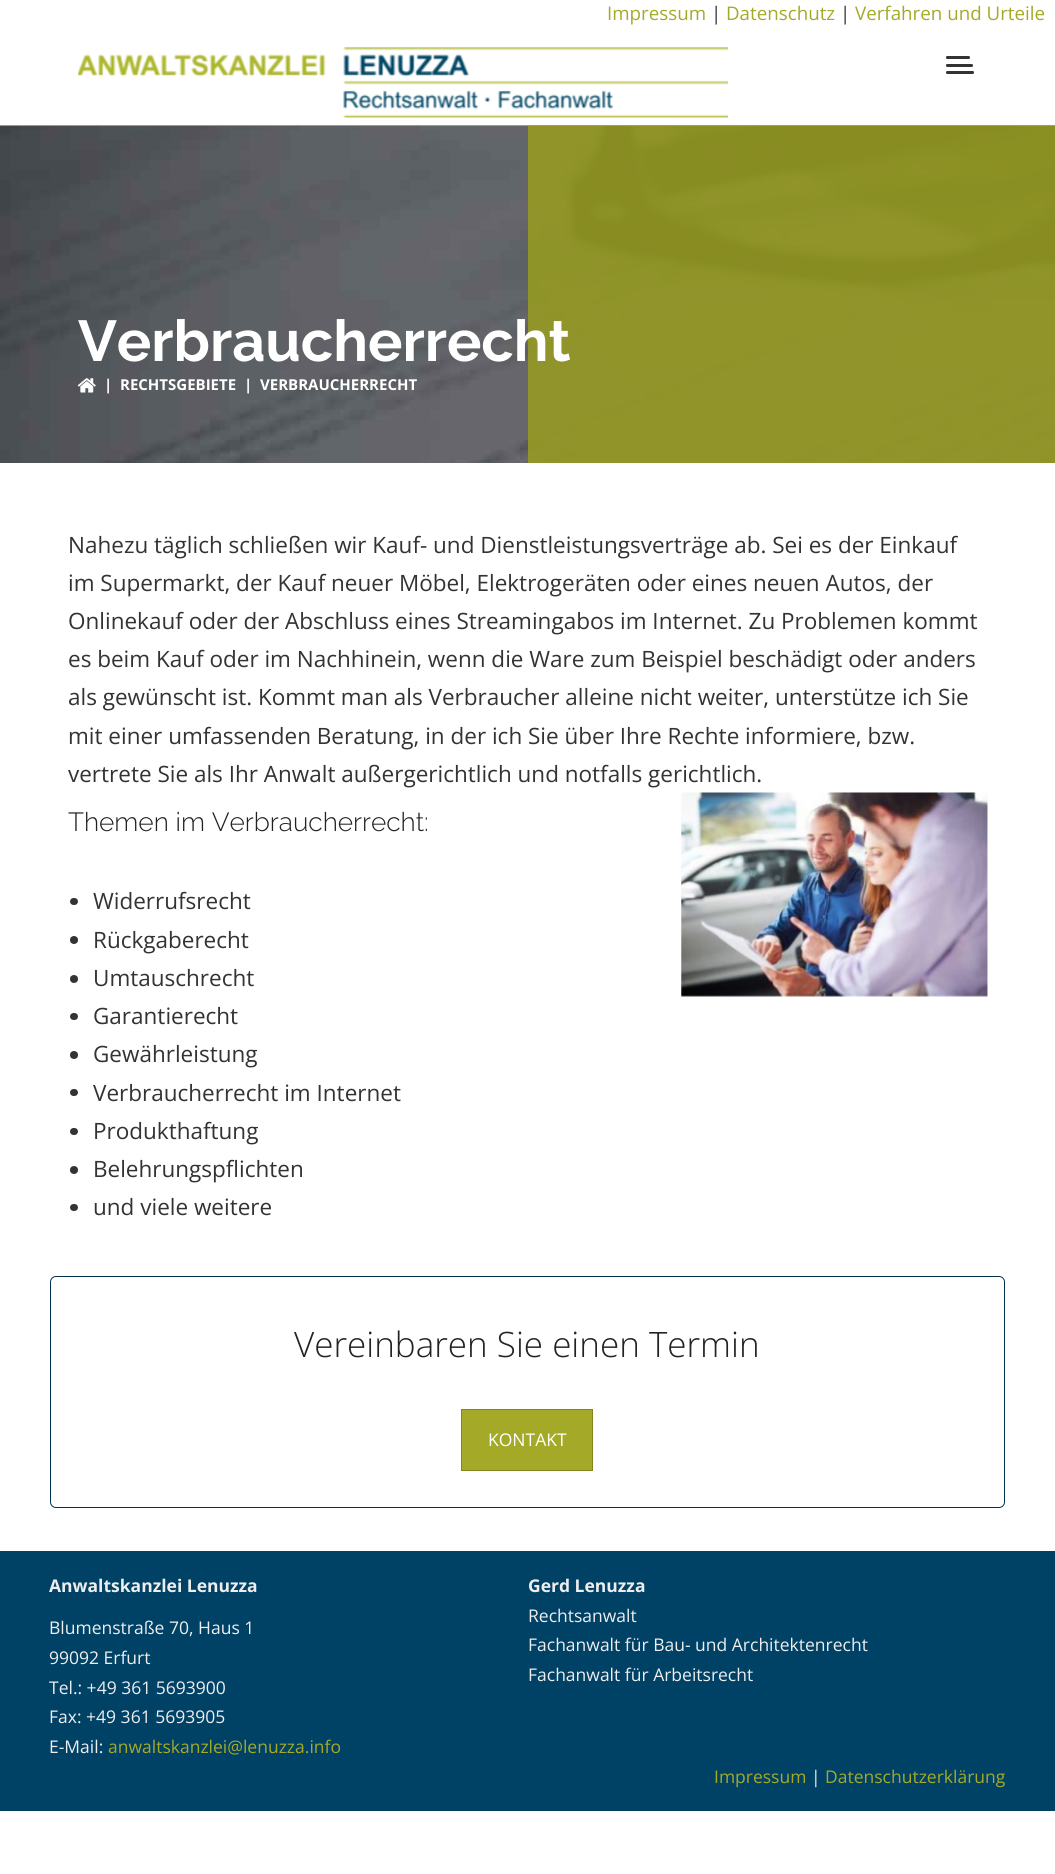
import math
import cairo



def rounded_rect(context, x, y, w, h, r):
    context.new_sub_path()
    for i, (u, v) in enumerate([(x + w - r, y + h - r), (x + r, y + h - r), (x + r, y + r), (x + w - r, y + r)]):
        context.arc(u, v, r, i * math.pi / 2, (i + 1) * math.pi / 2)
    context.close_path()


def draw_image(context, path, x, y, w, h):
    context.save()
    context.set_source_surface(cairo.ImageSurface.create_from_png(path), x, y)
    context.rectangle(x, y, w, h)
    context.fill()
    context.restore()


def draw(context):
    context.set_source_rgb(1, 1, 1)
    context.paint()
    context.set_source_rgb(164 / 255, 170 / 255, 39 / 255)
    context.rectangle(0, 125, 1055, 1)
    context.fill()
    draw_image(context, "images/1.png", 78, 47, 650, 71)
    context.set_source_rgb(51 / 255, 51 / 255, 51 / 255)
    context.new_path()
    context.move_to(947.5, 56)
    context.line_to(960, 56)
    context.line_to(960, 59)
    context.line_to(947.5, 59)
    context.curve_to(946.5, 59, 946, 58.5, 946, 57.5)
    context.curve_to(946, 56.5, 946.5, 56, 947.5, 56)
    context.close_path()
    context.fill()
    context.new_path()
    context.move_to(960, 56)
    context.line_to(968.5, 56)
    context.curve_to(969.5, 56, 970, 56.5, 970, 57.5)
    context.curve_to(970, 58.5, 969.5, 59, 968.5, 59)
    context.line_to(960, 59)
    context.close_path()
    context.fill()
    context.new_path()
    context.move_to(947.5, 64)
    context.line_to(960, 64)
    context.line_to(960, 67)
    context.line_to(947.5, 67)
    context.curve_to(946.5, 67, 946, 66.5, 946, 65.5)
    context.curve_to(946, 64.5, 946.5, 64, 947.5, 64)
    context.close_path()
    context.fill()
    context.new_path()
    context.move_to(960, 64)
    context.line_to(971.5, 64)
    context.curve_to(972.5, 64, 973, 64.5, 973, 65.5)
    context.curve_to(973, 66.5, 972.5, 67, 971.5, 67)
    context.line_to(960, 67)
    context.close_path()
    context.fill()
    context.new_path()
    context.move_to(947.5, 71)
    context.line_to(960, 71)
    context.line_to(960, 74)
    context.line_to(947.5, 74)
    context.curve_to(946.5, 74, 946, 73.5, 946, 72.5)
    context.curve_to(946, 71.5, 946.5, 71, 947.5, 71)
    context.close_path()
    context.fill()
    context.new_path()
    context.move_to(960, 71)
    context.line_to(972.5, 71)
    context.curve_to(973.5, 71, 974, 71.5, 974, 72.5)
    context.curve_to(974, 73.5, 973.5, 74, 972.5, 74)
    context.line_to(960, 74)
    context.close_path()
    context.fill()
    draw_image(context, "images/2.png", 0, 126, 1055, 337)
    draw_image(context, "images/3.png", 77, 378, 19, 15)
    context.set_source_rgba(164 / 255, 170 / 255, 39 / 255, 0.9)
    context.rectangle(528, 126, 527, 337)
    context.fill()
    context.set_source_rgba(0, 0, 0, 0.09)
    context.rectangle(528, 126, 527, 337)
    context.fill()
    context.set_source_rgb(51 / 255, 51 / 255, 51 / 255)
    rounded_rect(context, 70, 898, 8, 7, 3.5)
    context.fill()
    context.arc(74, 940, 4, 0, 2 * math.pi)
    context.fill()
    context.arc(74, 979, 4, 0, 2 * math.pi)
    context.fill()
    rounded_rect(context, 70, 1013, 8, 7, 3.5)
    context.fill()
    context.arc(74, 1055, 4, 0, 2 * math.pi)
    context.fill()
    rounded_rect(context, 70, 1089, 8, 7, 3.5)
    context.fill()
    rounded_rect(context, 70, 1128, 8, 7, 3.5)
    context.fill()
    context.arc(74, 1170, 4, 0, 2 * math.pi)
    context.fill()
    rounded_rect(context, 70, 1204, 8, 7, 3.5)
    context.fill()
    draw_image(context, "images/4.png", 681, 792, 307, 205)
    context.set_source_rgb(0, 65 / 255, 102 / 255)
    context.rectangle(0, 1551, 1055, 260)
    context.fill()
    rounded_rect(context, 50.5, 1276.5, 954, 231, 5.5)
    context.set_source_rgb(0, 49 / 255, 77 / 255)
    context.set_line_width(1)
    context.stroke()
    context.set_source_rgb(164 / 255, 170 / 255, 39 / 255)
    context.rectangle(461.5, 1409.5, 131, 61)
    context.fill_preserve()
    context.set_source_rgb(129 / 255, 134 / 255, 31 / 255)
    context.stroke()
    context.select_font_face("Open Sans")
    context.set_font_size(18.75)
    context.set_source_rgb(164 / 255, 170 / 255, 39 / 255)
    context.move_to(607, 20)
    context.show_text("Impressum")
    context.set_source_rgb(51 / 255, 51 / 255, 51 / 255)
    context.move_to(711, 20)
    context.show_text("|")
    context.set_source_rgb(164 / 255, 170 / 255, 39 / 255)
    context.move_to(726, 20)
    context.show_text("Datenschutz")
    context.set_source_rgb(51 / 255, 51 / 255, 51 / 255)
    context.move_to(840, 20)
    context.show_text("|")
    context.set_source_rgb(164 / 255, 170 / 255, 39 / 255)
    context.move_to(855, 20)
    context.show_text("Verfahren und Urteile")
    context.select_font_face("Raleway", cairo.FontSlant.NORMAL, cairo.FontWeight.BOLD)
    context.set_font_size(57.5)
    context.set_source_rgb(1, 1, 1)
    context.move_to(78, 361)
    context.show_text("Verbraucherrecht")
    context.select_font_face("Open Sans", cairo.FontSlant.NORMAL, cairo.FontWeight.BOLD)
    context.set_font_size(15)
    context.move_to(104, 390)
    context.show_text("|")
    context.move_to(120, 390)
    context.show_text("RECHTSGEBIETE")
    context.move_to(244, 390)
    context.show_text("|  VERBRAUCHERRECHT")
    context.select_font_face("Open Sans")
    context.set_font_size(22.5)
    context.set_source_rgb(51 / 255, 51 / 255, 51 / 255)
    context.move_to(68, 553)
    context.show_text("Nahezu täglich schließen wir Kauf- und Dienstleistungsverträge ab. Sei es der Einkauf")
    context.move_to(68, 591)
    context.show_text("im Supermarkt, der Kauf neuer Möbel, Elektrogeräten oder eines neuen Autos, der")
    context.move_to(68, 629)
    context.show_text("Onlinekauf oder der Abschluss eines Streamingabos im Internet. Zu Problemen kommt")
    context.move_to(68, 667)
    context.show_text("es beim Kauf oder im Nachhinein, wenn die Ware zum Beispiel beschädigt oder anders")
    context.move_to(68, 705)
    context.show_text("als gewünscht ist. Kommt man als Verbraucher alleine nicht weiter, unterstütze ich Sie")
    context.move_to(68, 744)
    context.show_text("mit einer umfassenden Beratung, in der ich Sie über Ihre Rechte informiere, bzw.")
    context.move_to(68, 782)
    context.show_text("vertrete Sie als Ihr Anwalt außergerichtlich und notfalls gerichtlich.")
    context.select_font_face("Raleway Light")
    context.set_font_size(26.25)
    context.set_source_rgb(34 / 255, 34 / 255, 34 / 255)
    context.move_to(68, 831)
    context.show_text("Themen im Verbraucherrecht:")
    context.select_font_face("Open Sans")
    context.set_font_size(22.5)
    context.set_source_rgb(51 / 255, 51 / 255, 51 / 255)
    context.move_to(93, 909)
    context.show_text("Widerrufsrecht")
    context.move_to(93, 948)
    context.show_text("Rückgaberecht")
    context.move_to(93, 986)
    context.show_text("Umtauschrecht")
    context.move_to(93, 1024)
    context.show_text("Garantierecht")
    context.move_to(93, 1062)
    context.show_text("Gewährleistung")
    context.move_to(93, 1101)
    context.show_text("Verbraucherrecht im Internet")
    context.move_to(93, 1139)
    context.show_text("Produkthaftung")
    context.move_to(93, 1177)
    context.show_text("Belehrungspflichten")
    context.move_to(93, 1215)
    context.show_text("und viele weitere")
    context.select_font_face("Open Sans Light")
    context.set_font_size(35)
    context.set_source_rgb(34 / 255, 34 / 255, 34 / 255)
    context.move_to(294, 1357)
    context.show_text("Vereinbaren Sie einen Termin")
    context.select_font_face("Open Sans")
    context.set_font_size(17.5)
    context.set_source_rgb(1, 1, 1)
    context.move_to(488, 1446)
    context.show_text("KONTAKT")
    context.select_font_face("Open Sans", cairo.FontSlant.NORMAL, cairo.FontWeight.BOLD)
    context.set_source_rgb(238 / 255, 238 / 255, 238 / 255)
    context.move_to(49, 1592)
    context.show_text("Anwaltskanzlei Lenuzza")
    context.select_font_face("Open Sans")
    context.move_to(49, 1634)
    context.show_text("Blumenstraße 70, Haus 1")
    context.move_to(49, 1664)
    context.show_text("99092 Erfurt")
    context.move_to(49, 1694)
    context.show_text("Tel.: +49 361 5693900")
    context.move_to(49, 1723)
    context.show_text("Fax: +49 361 5693905")
    context.move_to(49, 1753)
    context.show_text("E-Mail:")
    context.set_source_rgb(164 / 255, 170 / 255, 39 / 255)
    context.move_to(108, 1753)
    context.show_text("anwaltskanzlei@lenuzza.info")
    context.select_font_face("Open Sans", cairo.FontSlant.NORMAL, cairo.FontWeight.BOLD)
    context.set_source_rgb(238 / 255, 238 / 255, 238 / 255)
    context.move_to(528, 1592)
    context.show_text("Gerd Lenuzza")
    context.select_font_face("Open Sans")
    context.move_to(528, 1622)
    context.show_text("Rechtsanwalt")
    context.move_to(528, 1651)
    context.show_text("Fachanwalt für Bau- und Architektenrecht")
    context.move_to(528, 1681)
    context.show_text("Fachanwalt für Arbeitsrecht")
    context.set_source_rgb(164 / 255, 170 / 255, 39 / 255)
    context.move_to(714, 1783)
    context.show_text("Impressum")
    context.set_source_rgb(238 / 255, 238 / 255, 238 / 255)
    context.move_to(811, 1783)
    context.show_text("|")
    context.set_source_rgb(164 / 255, 170 / 255, 39 / 255)
    context.move_to(825, 1783)
    context.show_text("Datenschutzerklärung")


surface = cairo.ImageSurface(cairo.Format.RGB24, 1055, 1874)
context = cairo.Context(surface)
options = cairo.FontOptions()
options.set_hint_metrics(cairo.HintMetrics.OFF)
options.set_hint_style(cairo.HintStyle.NONE)
context.set_font_options(options)
context.set_miter_limit(4)
draw(context)
surface.write_to_png("out.png")
